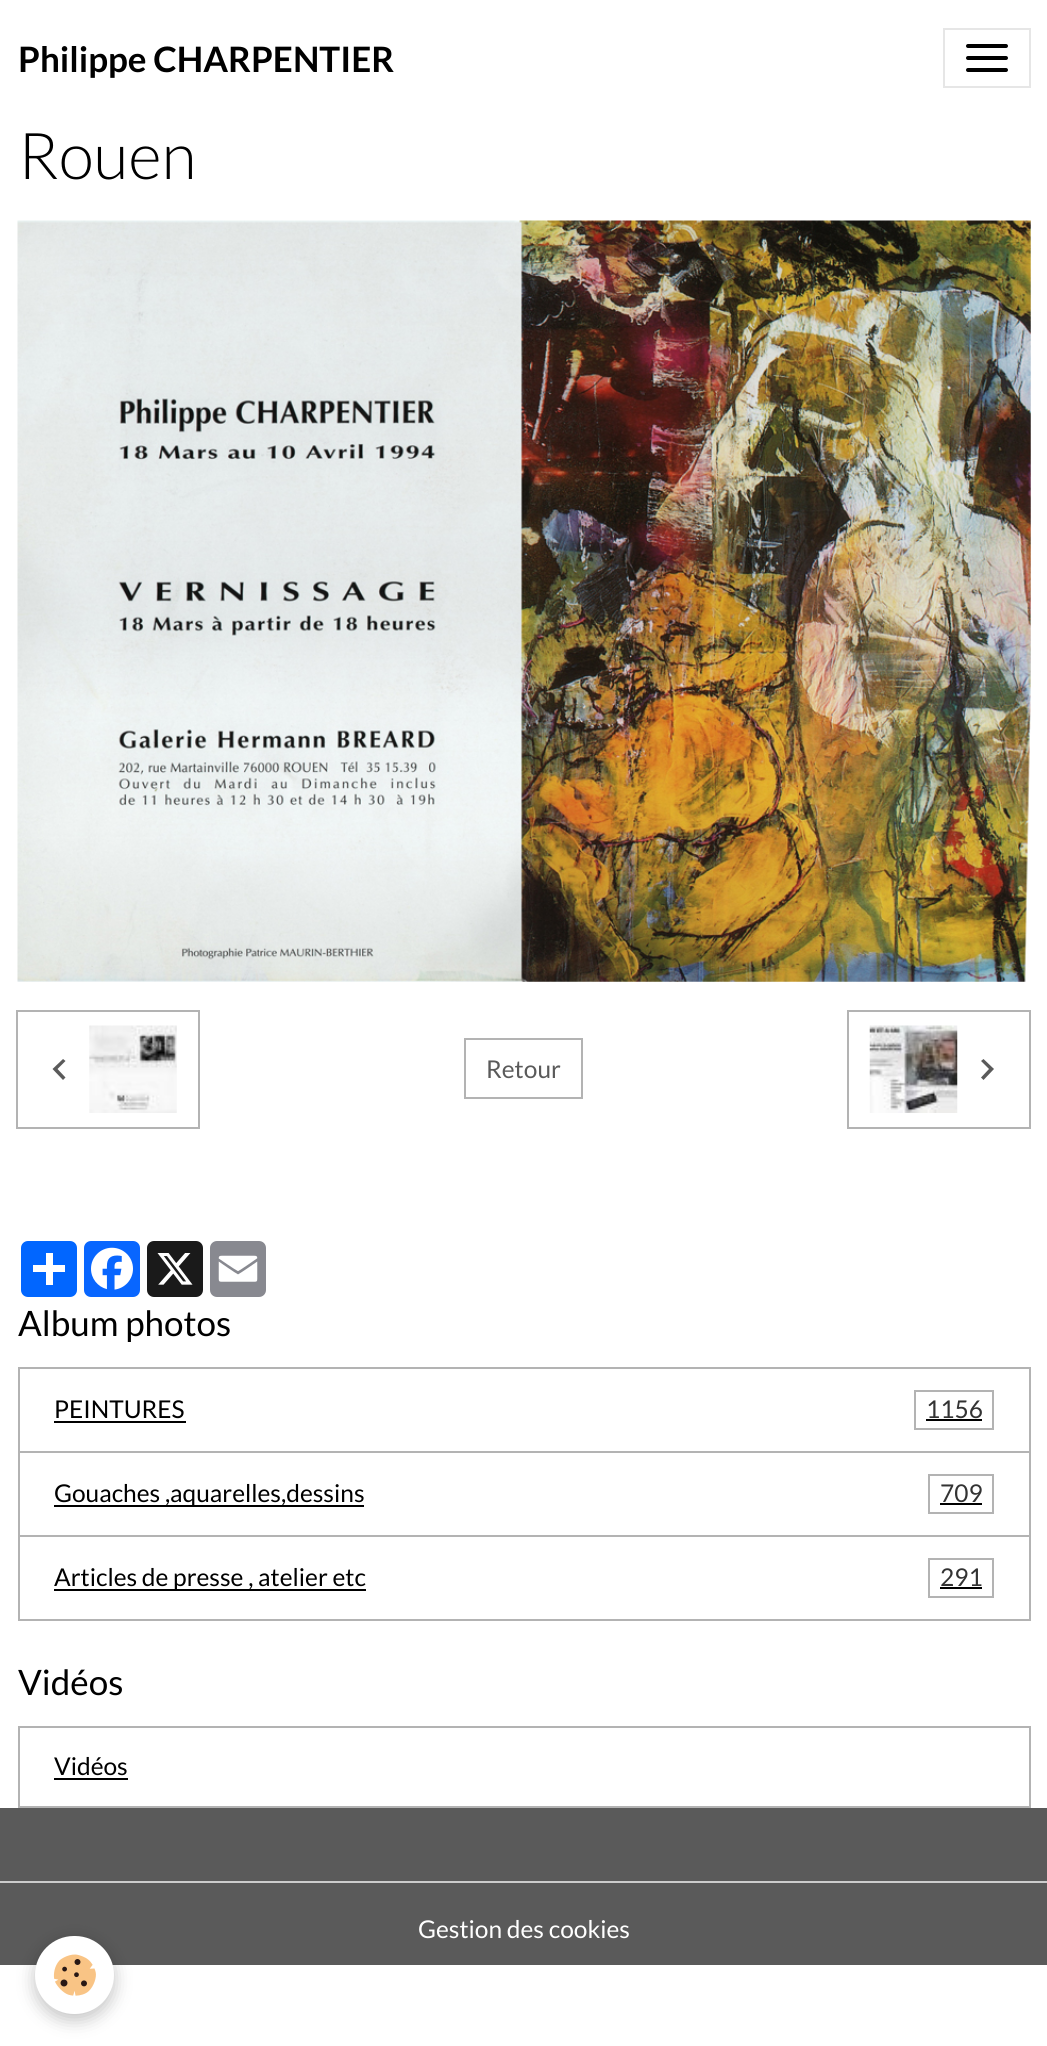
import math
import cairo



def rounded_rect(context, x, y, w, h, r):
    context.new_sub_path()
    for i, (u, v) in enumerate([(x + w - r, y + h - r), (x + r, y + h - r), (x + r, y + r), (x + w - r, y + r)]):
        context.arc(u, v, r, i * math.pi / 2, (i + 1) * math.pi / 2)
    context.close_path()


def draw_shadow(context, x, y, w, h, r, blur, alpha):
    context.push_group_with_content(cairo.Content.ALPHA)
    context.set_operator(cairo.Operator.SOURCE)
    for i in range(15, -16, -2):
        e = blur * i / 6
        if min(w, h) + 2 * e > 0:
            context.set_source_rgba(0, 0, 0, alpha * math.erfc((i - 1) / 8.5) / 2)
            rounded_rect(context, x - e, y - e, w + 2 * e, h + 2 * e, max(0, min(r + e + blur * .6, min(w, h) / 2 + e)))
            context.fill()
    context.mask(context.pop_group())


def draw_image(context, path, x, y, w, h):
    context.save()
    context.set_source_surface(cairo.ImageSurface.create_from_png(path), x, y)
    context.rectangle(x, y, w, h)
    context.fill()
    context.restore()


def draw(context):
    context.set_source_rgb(1, 1, 1)
    context.paint()
    context.rectangle(944, 29, 86, 58)
    context.set_source_rgb(230 / 255, 230 / 255, 230 / 255)
    context.stroke()
    context.set_source_rgb(0, 0, 0)
    rounded_rect(context, 966, 44, 42, 4, 2)
    context.fill()
    rounded_rect(context, 966, 56, 42, 4, 2)
    context.fill()
    rounded_rect(context, 966, 68, 42, 4, 2)
    context.fill()
    draw_image(context, "images/1.png", 17, 220, 1014, 762)
    context.rectangle(17, 1011, 182, 117)
    context.set_source_rgb(179 / 255, 179 / 255, 179 / 255)
    context.stroke()
    context.set_source_rgb(90 / 255, 90 / 255, 90 / 255)
    context.new_path()
    context.move_to(65.5, 1061)
    context.line_to(57.5, 1069)
    context.line_to(65.5, 1077.5)
    context.line_to(63, 1080)
    context.line_to(52.5, 1069)
    context.line_to(63, 1059)
    context.close_path()
    context.fill()
    draw_image(context, "images/2.png", 89, 1025, 88, 88)
    context.rectangle(465, 1039, 117, 59)
    context.set_source_rgb(179 / 255, 179 / 255, 179 / 255)
    context.stroke()
    context.rectangle(848, 1011, 182, 117)
    context.stroke()
    draw_image(context, "images/3.png", 869, 1025, 89, 88)
    context.set_source_rgb(90 / 255, 90 / 255, 90 / 255)
    context.new_path()
    context.move_to(983.5, 1059)
    context.line_to(994, 1069)
    context.line_to(983.5, 1080)
    context.line_to(981, 1077.5)
    context.line_to(989, 1069)
    context.line_to(981, 1061)
    context.close_path()
    context.fill()
    context.set_source_rgb(1 / 255, 102 / 255, 1)
    rounded_rect(context, 21, 1241, 56, 56, 7)
    context.fill()
    context.set_source_rgb(1, 1, 1)
    context.rectangle(46, 1253, 7, 32)
    context.fill()
    context.rectangle(33, 1265, 32, 7)
    context.fill()
    context.set_source_rgb(8 / 255, 102 / 255, 1)
    rounded_rect(context, 84, 1241, 56, 56, 7)
    context.fill()
    draw_image(context, "images/4.png", 91, 1247, 42, 43)
    context.set_source_rgb(26 / 255, 26 / 255, 26 / 255)
    rounded_rect(context, 147, 1241, 56, 56, 7)
    context.fill()
    draw_image(context, "images/5.png", 157, 1253, 36, 32)
    context.set_source_rgb(136 / 255, 137 / 255, 144 / 255)
    rounded_rect(context, 210, 1241, 56, 56, 7)
    context.fill()
    draw_image(context, "images/6.png", 218, 1255, 40, 27)
    context.rectangle(19, 1368, 1011, 84)
    context.set_source_rgb(179 / 255, 179 / 255, 179 / 255)
    context.stroke()
    context.set_source_rgb(0, 0, 0)
    context.rectangle(54, 1421, 132, 2)
    context.fill()
    context.rectangle(915, 1391, 78, 38)
    context.set_source_rgb(179 / 255, 179 / 255, 179 / 255)
    context.stroke()
    context.set_source_rgb(0, 0, 0)
    context.rectangle(926, 1419, 56, 2)
    context.fill()
    context.rectangle(19, 1452, 1011, 84)
    context.set_source_rgb(179 / 255, 179 / 255, 179 / 255)
    context.stroke()
    context.set_source_rgb(0, 0, 0)
    context.rectangle(54, 1505, 310, 2)
    context.fill()
    context.rectangle(929, 1475, 64, 38)
    context.set_source_rgb(179 / 255, 179 / 255, 179 / 255)
    context.stroke()
    context.set_source_rgb(0, 0, 0)
    context.rectangle(940, 1503, 42, 2)
    context.fill()
    context.rectangle(19, 1536, 1011, 84)
    context.set_source_rgb(179 / 255, 179 / 255, 179 / 255)
    context.stroke()
    context.set_source_rgb(0, 0, 0)
    context.rectangle(54, 1589, 312, 2)
    context.fill()
    context.rectangle(929, 1559, 64, 38)
    context.set_source_rgb(179 / 255, 179 / 255, 179 / 255)
    context.stroke()
    context.set_source_rgb(0, 0, 0)
    context.rectangle(940, 1587, 42, 2)
    context.fill()
    context.rectangle(19, 1727, 1011, 80)
    context.set_source_rgb(179 / 255, 179 / 255, 179 / 255)
    context.stroke()
    context.set_source_rgb(0, 0, 0)
    context.rectangle(54, 1778, 74, 2)
    context.fill()
    context.set_source_rgb(90 / 255, 90 / 255, 90 / 255)
    context.rectangle(0, 1808, 1047, 157)
    context.fill()
    context.set_source_rgb(0, 0, 0)
    draw_shadow(context, 35, 1941, 79, 79, 39.5, 9, 0.24)
    context.set_source_rgb(1, 1, 1)
    rounded_rect(context, 35, 1936, 79, 78, 39)
    context.fill()
    draw_image(context, "images/7.png", 53, 1954, 43, 42)
    context.set_source_rgb(204 / 255, 204 / 255, 204 / 255)
    context.rectangle(0, 1881, 1047, 2)
    context.fill()
    context.select_font_face("Lato", cairo.FontSlant.NORMAL, cairo.FontWeight.BOLD)
    context.set_font_size(35)
    context.set_source_rgb(0, 0, 0)
    context.move_to(18, 72)
    context.show_text("Philippe CHARPENTIER")
    context.select_font_face("Lato Light")
    context.set_font_size(64.5)
    context.move_to(18, 179)
    context.show_text("Rouen")
    context.select_font_face("Lato")
    context.set_font_size(24.5)
    context.set_source_rgb(90 / 255, 90 / 255, 90 / 255)
    context.move_to(486, 1078)
    context.show_text("Retour")
    context.set_font_size(35)
    context.set_source_rgb(0, 0, 0)
    context.move_to(18, 1336)
    context.show_text("Album photos")
    context.set_font_size(24.5)
    context.move_to(54, 1418)
    context.show_text("PEINTURES")
    context.set_source_rgb(51 / 255, 51 / 255, 51 / 255)
    context.move_to(926, 1418)
    context.show_text("1156")
    context.set_source_rgb(0, 0, 0)
    context.move_to(54, 1502)
    context.show_text("Gouaches ,aquarelles,dessins")
    context.set_source_rgb(51 / 255, 51 / 255, 51 / 255)
    context.move_to(940, 1502)
    context.show_text("709")
    context.set_source_rgb(0, 0, 0)
    context.move_to(54, 1586)
    context.show_text("Articles de presse , atelier etc")
    context.set_source_rgb(51 / 255, 51 / 255, 51 / 255)
    context.move_to(940, 1586)
    context.show_text("291")
    context.set_font_size(35)
    context.set_source_rgb(0, 0, 0)
    context.move_to(18, 1695)
    context.show_text("Vidéos")
    context.set_font_size(24.5)
    context.move_to(54, 1775)
    context.show_text("Vidéos")
    context.set_source_rgb(1, 1, 1)
    context.move_to(418, 1938)
    context.show_text("Gestion des cookies")


surface = cairo.ImageSurface(cairo.Format.RGB24, 1047, 2046)
context = cairo.Context(surface)
options = cairo.FontOptions()
options.set_hint_metrics(cairo.HintMetrics.OFF)
options.set_hint_style(cairo.HintStyle.NONE)
context.set_font_options(options)
context.set_miter_limit(4)
draw(context)
surface.write_to_png("out.png")
